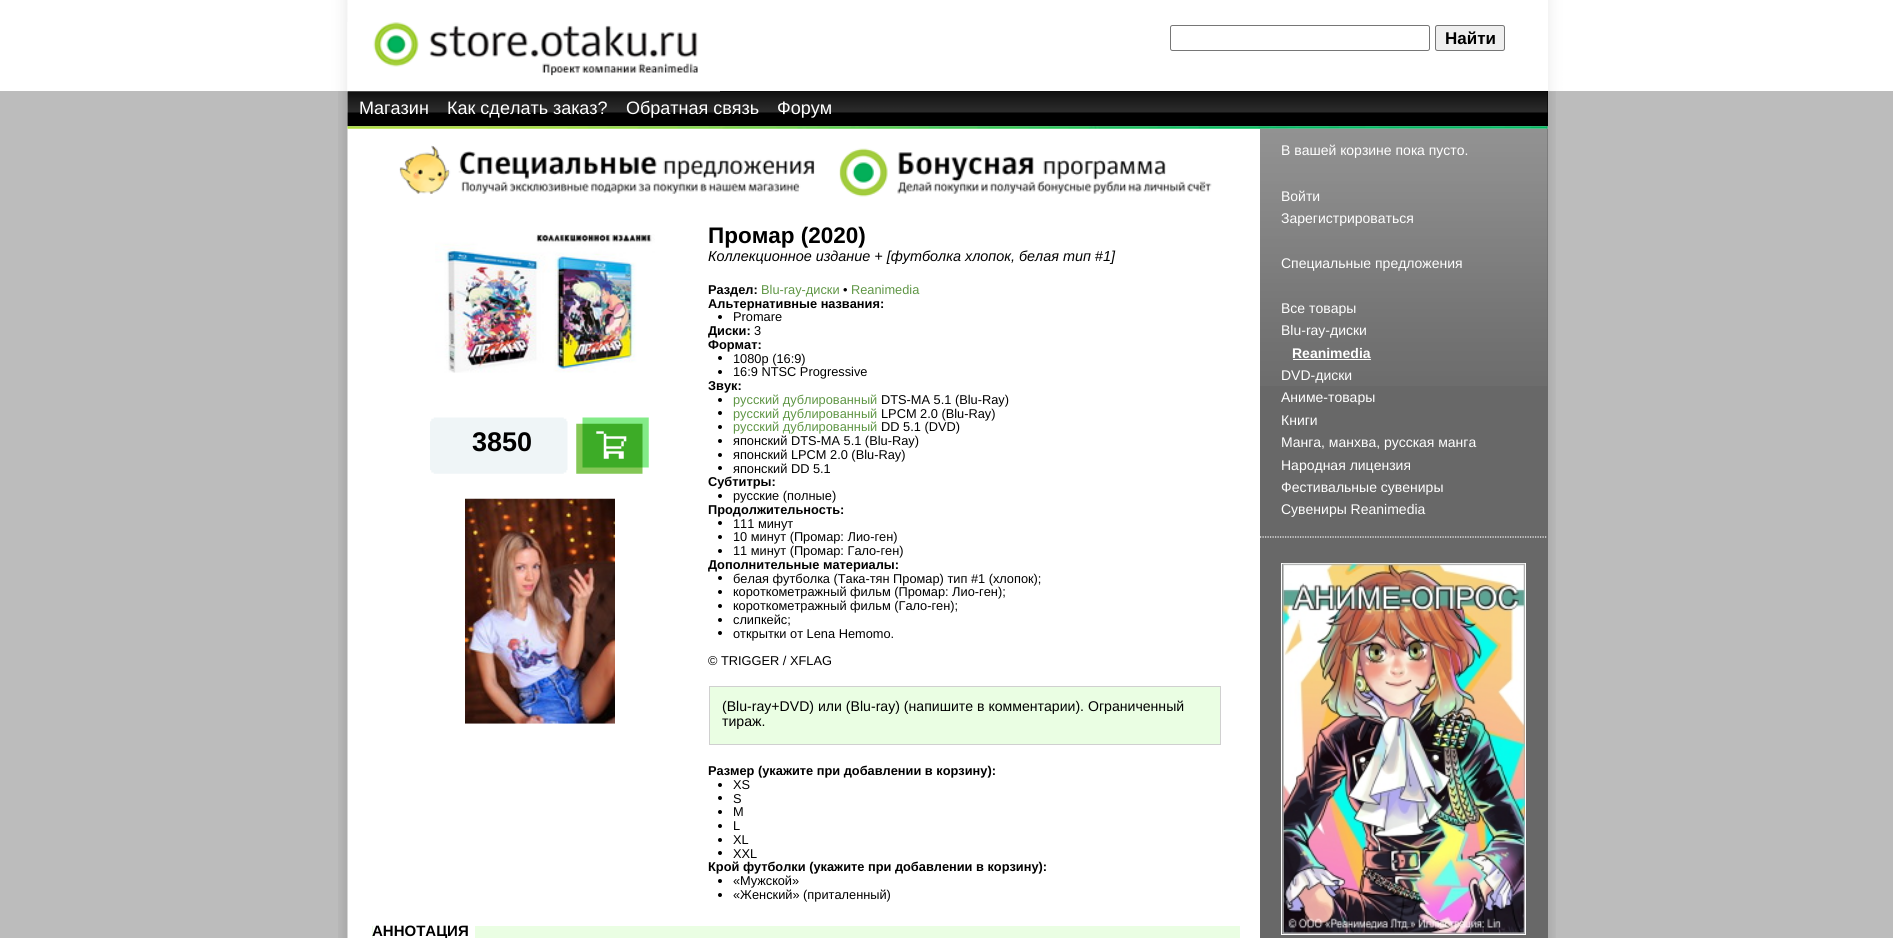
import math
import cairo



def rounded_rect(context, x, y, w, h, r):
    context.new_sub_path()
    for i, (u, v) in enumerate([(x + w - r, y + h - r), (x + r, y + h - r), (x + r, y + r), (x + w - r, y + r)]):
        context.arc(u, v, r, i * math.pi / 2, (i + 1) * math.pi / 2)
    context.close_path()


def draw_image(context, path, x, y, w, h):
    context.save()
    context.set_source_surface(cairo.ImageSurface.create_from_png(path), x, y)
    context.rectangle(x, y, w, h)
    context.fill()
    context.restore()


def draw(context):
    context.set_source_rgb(1, 1, 1)
    context.paint()
    draw_image(context, "images/1.png", 322, 0, 1251, 91)
    context.set_source_rgb(1, 1, 1)
    context.rectangle(1546, 0, 2, 91)
    context.fill()
    context.set_source_rgb(188 / 255, 188 / 255, 188 / 255)
    context.rectangle(0, 91, 1893, 847)
    context.fill()
    draw_image(context, "images/3.png", 338, 91, 1218, 847)
    context.set_source_rgb(0, 0, 0)
    context.rectangle(348, 91, 1200, 35)
    context.fill()
    draw_image(context, "images/4.png", 347, 91, 1201, 36)
    draw_image(context, "images/2.png", 347, 22, 373, 70)
    rounded_rect(context, 1170.5, 25.5, 259, 25, 2)
    context.set_source_rgb(118 / 255, 118 / 255, 118 / 255)
    context.set_line_width(1)
    context.stroke()
    context.set_source_rgb(239 / 255, 239 / 255, 239 / 255)
    rounded_rect(context, 1435.5, 25.5, 69, 25, 2)
    context.fill_preserve()
    context.set_source_rgb(118 / 255, 118 / 255, 118 / 255)
    context.stroke()
    draw_image(context, "images/5.png", 347, 126, 1201, 3)
    context.set_source_rgb(104 / 255, 104 / 255, 104 / 255)
    context.rectangle(1260, 129, 288, 809)
    context.fill()
    draw_image(context, "images/6.png", 399, 145, 416, 49)
    draw_image(context, "images/7.png", 839, 148, 373, 49)
    draw_image(context, "images/8.png", 435, 234, 220, 139)
    draw_image(context, "images/9.png", 430, 417, 138, 57)
    draw_image(context, "images/10.png", 576, 417, 73, 57)
    draw_image(context, "images/11.png", 465, 498, 150, 226)
    context.set_source_rgb(0, 0, 0)
    context.arc(720, 317, 2, 0, 2 * math.pi)
    context.fill()
    context.arc(720, 358, 2, 0, 2 * math.pi)
    context.fill()
    context.arc(720, 372, 2, 0, 2 * math.pi)
    context.fill()
    context.arc(720, 400, 2, 0, 2 * math.pi)
    context.fill()
    context.arc(720, 413, 2, 0, 2 * math.pi)
    context.fill()
    context.arc(720, 427, 2, 0, 2 * math.pi)
    context.fill()
    context.arc(720, 441, 2, 0, 2 * math.pi)
    context.fill()
    context.arc(720, 455, 2, 0, 2 * math.pi)
    context.fill()
    context.arc(720, 468, 2, 0, 2 * math.pi)
    context.fill()
    context.arc(720, 496, 2, 0, 2 * math.pi)
    context.fill()
    context.arc(720, 523, 2, 0, 2 * math.pi)
    context.fill()
    context.arc(720, 537, 2, 0, 2 * math.pi)
    context.fill()
    context.arc(720, 551, 2, 0, 2 * math.pi)
    context.fill()
    context.arc(720, 578, 2, 0, 2 * math.pi)
    context.fill()
    context.arc(720, 592, 2, 0, 2 * math.pi)
    context.fill()
    context.arc(720, 606, 2, 0, 2 * math.pi)
    context.fill()
    context.arc(720, 620, 2, 0, 2 * math.pi)
    context.fill()
    context.arc(720, 633, 2, 0, 2 * math.pi)
    context.fill()
    context.set_source_rgb(234 / 255, 254 / 255, 227 / 255)
    context.rectangle(709.5, 686.5, 511, 58)
    context.fill_preserve()
    context.set_source_rgb(208 / 255, 208 / 255, 208 / 255)
    context.stroke()
    context.set_source_rgb(0, 0, 0)
    context.arc(720, 785, 2, 0, 2 * math.pi)
    context.fill()
    context.arc(720, 798, 2, 0, 2 * math.pi)
    context.fill()
    context.arc(720, 812, 2, 0, 2 * math.pi)
    context.fill()
    context.arc(720, 826, 2, 0, 2 * math.pi)
    context.fill()
    context.arc(720, 840, 2, 0, 2 * math.pi)
    context.fill()
    context.arc(720, 853, 2, 0, 2 * math.pi)
    context.fill()
    context.arc(720, 881, 2, 0, 2 * math.pi)
    context.fill()
    context.arc(720, 895, 2, 0, 2 * math.pi)
    context.fill()
    context.set_source_rgb(234 / 255, 254 / 255, 227 / 255)
    context.rectangle(372, 926, 868, 12)
    context.fill()
    context.set_source_rgb(1, 1, 1)
    context.rectangle(373, 926, 102, 12)
    context.fill()
    draw_image(context, "images/12.png", 1260, 128, 288, 258)
    context.rectangle(1293, 359, 78, 1)
    context.fill()
    context.new_path()
    context.move_to(1260, 537)
    context.line_to(1547.5, 537)
    context.set_line_width(1.2)
    context.set_dash([1.25, 1.25])
    context.stroke()
    context.rectangle(1281.5, 563.5, 244, 371)
    context.set_line_width(1)
    context.set_dash([])
    context.stroke()
    draw_image(context, "images/13.png", 1282, 563, 243, 371)
    context.select_font_face("Liberation Sans", cairo.FontSlant.NORMAL, cairo.FontWeight.BOLD)
    context.set_font_size(17)
    context.set_source_rgb(0, 0, 0)
    context.move_to(1445, 44)
    context.show_text("Найти")
    context.select_font_face("Liberation Sans")
    context.set_font_size(18)
    context.set_source_rgb(1, 1, 1)
    context.move_to(359, 114)
    context.show_text("Магазин")
    context.move_to(447, 114)
    context.show_text("Как сделать заказ?")
    context.move_to(626, 114)
    context.show_text("Обратная связь")
    context.move_to(777, 114)
    context.show_text("Форум")
    context.select_font_face("Liberation Sans", cairo.FontSlant.NORMAL, cairo.FontWeight.BOLD)
    context.set_font_size(27)
    context.set_source_rgb(0, 0, 0)
    context.move_to(472, 451)
    context.show_text("3850")
    context.set_font_size(22.5)
    context.move_to(708, 243)
    context.show_text("Промар (2020)")
    context.select_font_face("Liberation Sans", cairo.FontSlant.ITALIC)
    context.set_font_size(14.4)
    context.move_to(708, 261)
    context.show_text("Коллекционное издание + [футболка хлопок, белая тип #1]")
    context.select_font_face("Liberation Sans", cairo.FontSlant.NORMAL, cairo.FontWeight.BOLD)
    context.set_font_size(12.8)
    context.move_to(708, 294)
    context.show_text("Раздел:")
    context.select_font_face("Liberation Sans")
    context.set_source_rgb(95 / 255, 150 / 255, 69 / 255)
    context.move_to(761, 294)
    context.show_text("Blu-ray-диски")
    context.set_source_rgb(0, 0, 0)
    context.move_to(843, 294)
    context.show_text("•")
    context.set_source_rgb(95 / 255, 150 / 255, 69 / 255)
    context.move_to(851, 294)
    context.show_text("Reanimedia")
    context.select_font_face("Liberation Sans", cairo.FontSlant.NORMAL, cairo.FontWeight.BOLD)
    context.set_source_rgb(0, 0, 0)
    context.move_to(708, 308)
    context.show_text("Альтернативные названия:")
    context.select_font_face("Liberation Sans")
    context.move_to(733, 321)
    context.show_text("Promare")
    context.select_font_face("Liberation Sans", cairo.FontSlant.NORMAL, cairo.FontWeight.BOLD)
    context.move_to(708, 335)
    context.show_text("Диски:")
    context.select_font_face("Liberation Sans")
    context.move_to(754, 335)
    context.show_text("3")
    context.select_font_face("Liberation Sans", cairo.FontSlant.NORMAL, cairo.FontWeight.BOLD)
    context.move_to(708, 349)
    context.show_text("Формат:")
    context.select_font_face("Liberation Sans")
    context.move_to(733, 363)
    context.show_text("1080p (16:9)")
    context.move_to(733, 376)
    context.show_text("16:9 NTSC Progressive")
    context.select_font_face("Liberation Sans", cairo.FontSlant.NORMAL, cairo.FontWeight.BOLD)
    context.move_to(708, 390)
    context.show_text("Звук:")
    context.select_font_face("Liberation Sans")
    context.set_source_rgb(95 / 255, 150 / 255, 69 / 255)
    context.move_to(733, 404)
    context.show_text("русский дублированный")
    context.set_source_rgb(0, 0, 0)
    context.move_to(881, 404)
    context.show_text("DTS-MA 5.1 (Blu-Ray)")
    context.set_source_rgb(95 / 255, 150 / 255, 69 / 255)
    context.move_to(733, 418)
    context.show_text("русский дублированный")
    context.set_source_rgb(0, 0, 0)
    context.move_to(881, 418)
    context.show_text("LPCM 2.0 (Blu-Ray)")
    context.set_source_rgb(95 / 255, 150 / 255, 69 / 255)
    context.move_to(733, 431)
    context.show_text("русский дублированный")
    context.set_source_rgb(0, 0, 0)
    context.move_to(881, 431)
    context.show_text("DD 5.1 (DVD)")
    context.move_to(733, 445)
    context.show_text("японский DTS-MA 5.1 (Blu-Ray)")
    context.move_to(733, 459)
    context.show_text("японский LPCM 2.0 (Blu-Ray)")
    context.move_to(733, 473)
    context.show_text("японский DD 5.1")
    context.select_font_face("Liberation Sans", cairo.FontSlant.NORMAL, cairo.FontWeight.BOLD)
    context.move_to(708, 486)
    context.show_text("Субтитры:")
    context.select_font_face("Liberation Sans")
    context.move_to(733, 500)
    context.show_text("русские (полные)")
    context.select_font_face("Liberation Sans", cairo.FontSlant.NORMAL, cairo.FontWeight.BOLD)
    context.move_to(708, 514)
    context.show_text("Продолжительность:")
    context.select_font_face("Liberation Sans")
    context.move_to(733, 528)
    context.show_text("111 минут")
    context.move_to(733, 541)
    context.show_text("10 минут (Промар: Лио-ген)")
    context.move_to(733, 555)
    context.show_text("11 минут (Промар: Гало-ген)")
    context.select_font_face("Liberation Sans", cairo.FontSlant.NORMAL, cairo.FontWeight.BOLD)
    context.move_to(708, 569)
    context.show_text("Дополнительные материалы:")
    context.select_font_face("Liberation Sans")
    context.move_to(733, 583)
    context.show_text("белая футболка (Така-тян Промар) тип #1 (хлопок);")
    context.move_to(733, 596)
    context.show_text("короткометражный фильм (Промар: Лио-ген);")
    context.move_to(733, 610)
    context.show_text("короткометражный фильм (Гало-ген);")
    context.move_to(733, 624)
    context.show_text("слипкейс;")
    context.move_to(733, 638)
    context.show_text("открытки от Lena Hemomo.")
    context.move_to(708, 665)
    context.show_text("© TRIGGER / XFLAG")
    context.set_font_size(14.1)
    context.move_to(722, 711)
    context.show_text("(Blu-ray+DVD) или (Blu-ray) (напишите в комментарии). Ограниченный")
    context.move_to(722, 726)
    context.show_text("тираж.")
    context.select_font_face("Liberation Sans", cairo.FontSlant.NORMAL, cairo.FontWeight.BOLD)
    context.set_font_size(12.8)
    context.move_to(708, 775)
    context.show_text("Размер (укажите при добавлении в корзину):")
    context.select_font_face("Liberation Sans")
    context.move_to(733, 789)
    context.show_text("XS")
    context.move_to(733, 803)
    context.show_text("S")
    context.move_to(733, 816)
    context.show_text("M")
    context.move_to(733, 830)
    context.show_text("L")
    context.move_to(733, 844)
    context.show_text("XL")
    context.move_to(733, 858)
    context.show_text("XXL")
    context.select_font_face("Liberation Sans", cairo.FontSlant.NORMAL, cairo.FontWeight.BOLD)
    context.move_to(708, 871)
    context.show_text("Крой футболки (укажите при добавлении в корзину):")
    context.select_font_face("Liberation Sans")
    context.move_to(733, 885)
    context.show_text("«Мужской»")
    context.move_to(733, 899)
    context.show_text("«Женский» (приталенный)")
    context.select_font_face("Liberation Sans", cairo.FontSlant.NORMAL, cairo.FontWeight.BOLD)
    context.set_font_size(15)
    context.move_to(372, 936)
    context.show_text("АННОТАЦИЯ")
    context.select_font_face("Liberation Sans")
    context.set_font_size(14)
    context.set_source_rgb(1, 1, 1)
    context.move_to(1281, 155)
    context.show_text("В вашей корзине пока пусто.")
    context.move_to(1281, 201)
    context.show_text("Войти")
    context.move_to(1281, 223)
    context.show_text("Зарегистрироваться")
    context.move_to(1281, 268)
    context.show_text("Специальные предложения")
    context.move_to(1281, 313)
    context.show_text("Все товары")
    context.move_to(1281, 335)
    context.show_text("Blu-ray-диски")
    context.select_font_face("Liberation Sans", cairo.FontSlant.NORMAL, cairo.FontWeight.BOLD)
    context.move_to(1292, 358)
    context.show_text("Reanimedia")
    context.select_font_face("Liberation Sans")
    context.move_to(1281, 380)
    context.show_text("DVD-диски")
    context.move_to(1281, 402)
    context.show_text("Аниме-товары")
    context.move_to(1281, 425)
    context.show_text("Книги")
    context.move_to(1281, 447)
    context.show_text("Манга, манхва, русская манга")
    context.move_to(1281, 470)
    context.show_text("Народная лицензия")
    context.move_to(1281, 492)
    context.show_text("Фестивальные сувениры")
    context.move_to(1281, 514)
    context.show_text("Сувениры Reanimedia")


surface = cairo.ImageSurface(cairo.Format.RGB24, 1893, 938)
context = cairo.Context(surface)
options = cairo.FontOptions()
options.set_hint_metrics(cairo.HintMetrics.OFF)
options.set_hint_style(cairo.HintStyle.NONE)
context.set_font_options(options)
context.set_miter_limit(4)
draw(context)
surface.write_to_png("out.png")
